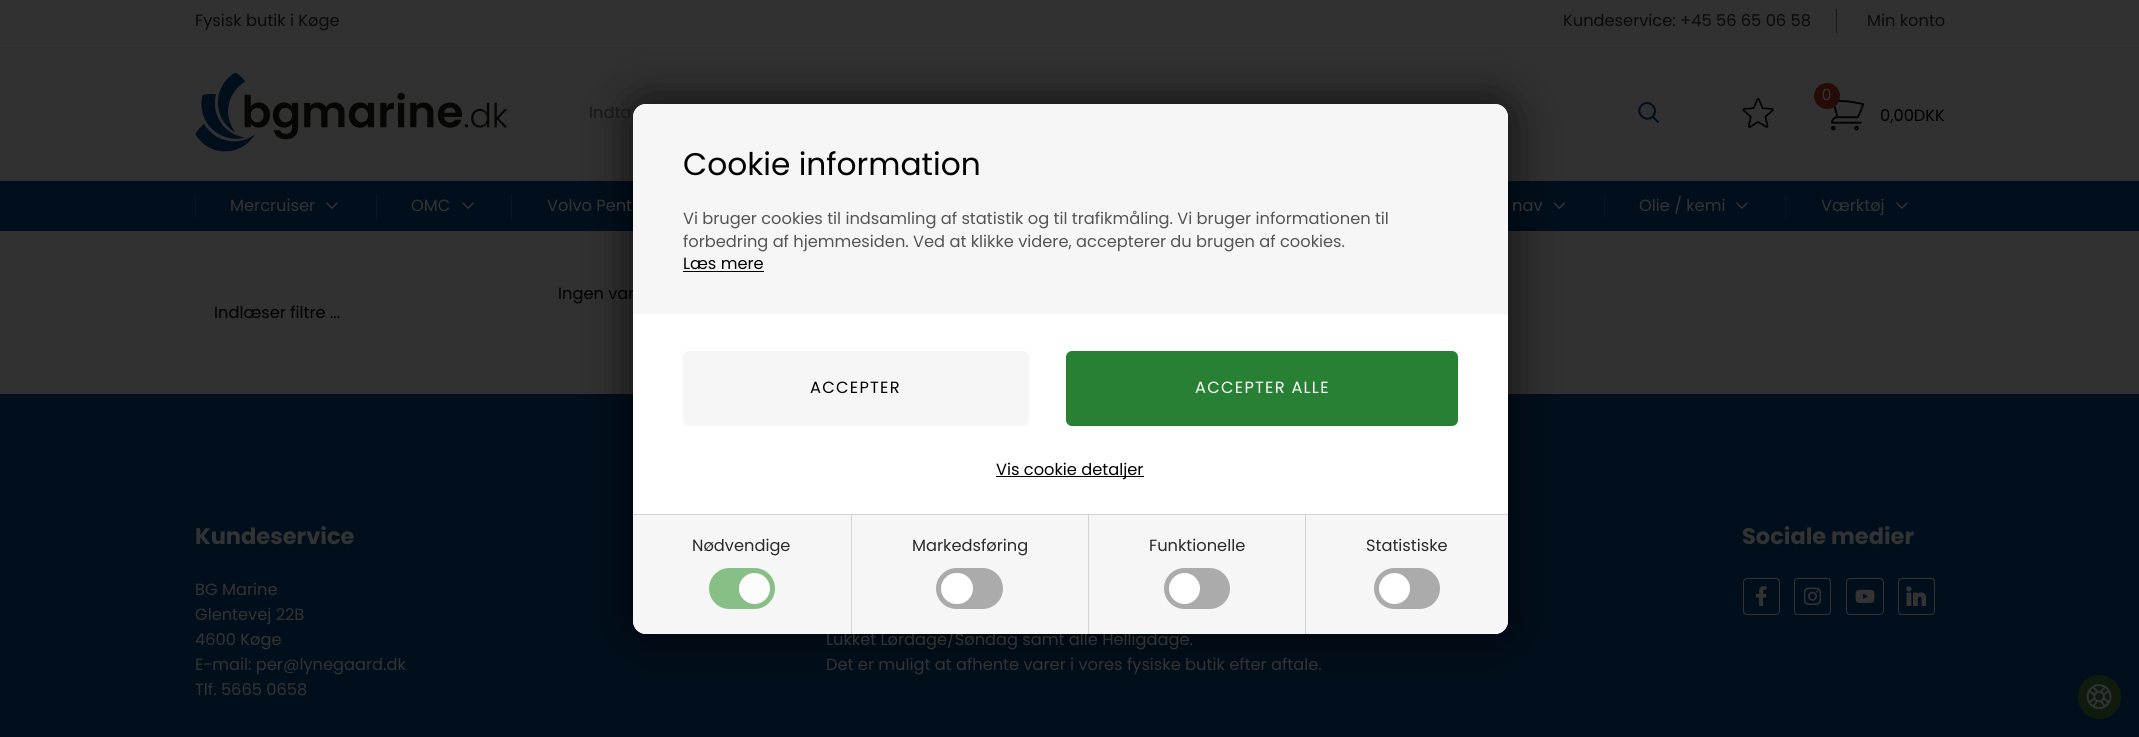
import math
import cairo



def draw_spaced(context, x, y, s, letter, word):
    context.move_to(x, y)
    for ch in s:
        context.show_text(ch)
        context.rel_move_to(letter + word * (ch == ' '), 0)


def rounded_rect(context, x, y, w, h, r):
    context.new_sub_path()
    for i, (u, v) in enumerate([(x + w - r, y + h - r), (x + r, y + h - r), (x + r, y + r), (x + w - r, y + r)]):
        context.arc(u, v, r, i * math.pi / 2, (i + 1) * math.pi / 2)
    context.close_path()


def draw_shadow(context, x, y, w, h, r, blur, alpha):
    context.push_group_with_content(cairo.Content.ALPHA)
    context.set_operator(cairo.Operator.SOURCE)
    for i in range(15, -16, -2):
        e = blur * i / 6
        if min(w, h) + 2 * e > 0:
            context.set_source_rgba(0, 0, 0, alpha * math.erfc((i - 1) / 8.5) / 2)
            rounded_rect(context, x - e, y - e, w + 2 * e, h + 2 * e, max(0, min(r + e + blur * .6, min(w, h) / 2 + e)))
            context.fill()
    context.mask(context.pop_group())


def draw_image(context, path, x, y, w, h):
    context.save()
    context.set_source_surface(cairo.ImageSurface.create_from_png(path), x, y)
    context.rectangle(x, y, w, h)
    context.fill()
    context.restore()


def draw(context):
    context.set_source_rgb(49 / 255, 49 / 255, 49 / 255)
    context.paint()
    context.set_source_rgb(46 / 255, 46 / 255, 46 / 255)
    context.rectangle(0, 43, 2139, 1)
    context.fill()
    context.set_source_rgb(24 / 255, 24 / 255, 24 / 255)
    context.rectangle(1836, 9, 1, 24)
    context.fill()
    draw_image(context, "images/1.png", 195, 73, 313, 79)
    context.new_path()
    context.move_to(1658, 122)
    context.line_to(1652.5, 116.5)
    context.move_to(1652.5, 116.5)
    context.curve_to(1660, 109, 1649, 98, 1641.5, 105.5)
    context.curve_to(1634.5, 112.5, 1645.5, 123.5, 1652.5, 116.5)
    context.close_path()
    context.set_source_rgb(1 / 255, 15 / 255, 28 / 255)
    context.set_line_width(2.1)
    context.set_line_cap(cairo.LineCap.ROUND)
    context.set_line_join(cairo.LineJoin.ROUND)
    context.stroke()
    draw_image(context, "images/2.png", 1742, 98, 32, 30)
    draw_image(context, "images/3.png", 1831, 100, 34, 31)
    context.set_source_rgb(38 / 255, 12 / 255, 9 / 255)
    context.arc(1827, 96, 13, 0, 2 * math.pi)
    context.fill()
    context.set_source_rgb(1 / 255, 15 / 255, 28 / 255)
    context.rectangle(0, 181, 2139, 50)
    context.fill()
    draw_image(context, "images/6.png", 1553, 202, 12, 7)
    context.rectangle(0, 394, 2139, 343)
    context.fill()
    context.set_source_rgb(0, 0, 0)
    draw_shadow(context, 633, 104, 875, 530, 13, 25, 0.7)
    context.set_source_rgb(11 / 255, 22 / 255, 33 / 255)
    context.rectangle(195, 194, 1, 25)
    context.fill()
    draw_image(context, "images/4.png", 326, 202, 12, 7)
    context.rectangle(376, 194, 1, 25)
    context.fill()
    draw_image(context, "images/5.png", 462, 202, 12, 7)
    context.rectangle(511, 194, 1, 25)
    context.fill()
    context.rectangle(1604, 194, 1, 25)
    context.fill()
    draw_image(context, "images/4.png", 1736, 202, 12, 7)
    context.rectangle(1785, 194, 1, 25)
    context.fill()
    draw_image(context, "images/4.png", 1896, 202, 12, 7)
    rounded_rect(context, 1743.5, 578.5, 36, 36, 3.5)
    context.set_source_rgb(51 / 255, 51 / 255, 51 / 255)
    context.set_line_width(1)
    context.set_line_cap(cairo.LineCap.BUTT)
    context.set_line_join(cairo.LineJoin.MITER)
    context.stroke()
    draw_image(context, "images/7.png", 1755, 586, 12, 20)
    rounded_rect(context, 1794.5, 578.5, 36, 36, 3.5)
    context.stroke()
    draw_image(context, "images/8.png", 1804, 587, 17, 18)
    rounded_rect(context, 1846.5, 578.5, 37, 36, 3.5)
    context.stroke()
    draw_image(context, "images/9.png", 1855, 589, 20, 14)
    rounded_rect(context, 1898.5, 578.5, 36, 36, 3.5)
    context.stroke()
    draw_image(context, "images/10.png", 1906, 586, 20, 20)
    context.set_source_rgb(14 / 255, 27 / 255, 13 / 255)
    rounded_rect(context, 2078, 675, 43, 44, 21.5)
    context.fill()
    draw_image(context, "images/11.png", 2086, 684, 26, 25)
    context.select_font_face("Poppins")
    context.set_font_size(16.25)
    context.set_source_rgb(10 / 255, 10 / 255, 10 / 255)
    context.move_to(195, 26)
    context.show_text("Fysisk butik i Køge")
    context.move_to(1563, 26)
    context.show_text("Kundeservice: +45 56 65 06 58")
    context.move_to(1867, 26)
    context.show_text("Min konto")
    context.set_source_rgb(23 / 255, 23 / 255, 23 / 255)
    context.move_to(589, 118)
    context.show_text("Indta")
    context.select_font_face("Liberation Sans")
    context.set_source_rgb(51 / 255, 51 / 255, 51 / 255)
    context.move_to(1822, 100)
    context.show_text("0")
    context.select_font_face("Poppins")
    context.set_source_rgb(0, 0, 0)
    context.move_to(1880, 121)
    context.show_text("0,00DKK")
    context.set_source_rgb(51 / 255, 51 / 255, 51 / 255)
    context.move_to(230, 211)
    context.show_text("Mercruiser")
    context.move_to(411, 211)
    context.show_text("OMC")
    context.move_to(547, 211)
    context.show_text("Volvo Pent")
    context.move_to(1512, 211)
    context.show_text("nav")
    context.move_to(1639, 211)
    context.show_text("Olie / kemi")
    context.move_to(1821, 211)
    context.show_text("Værktøj")
    context.set_source_rgb(0, 0, 0)
    context.move_to(558, 299)
    context.show_text("Ingen var")
    context.move_to(214, 318)
    context.show_text("Indlæser filtre ...")
    context.select_font_face("Poppins", cairo.FontSlant.NORMAL, cairo.FontWeight.BOLD)
    context.set_font_size(22.5)
    context.set_source_rgb(51 / 255, 51 / 255, 51 / 255)
    context.move_to(195, 544)
    context.show_text("Kundeservice")
    context.select_font_face("Poppins")
    context.set_font_size(16.25)
    context.move_to(195, 595)
    context.show_text("BG Marine")
    context.move_to(195, 620)
    context.show_text("Glentevej 22B")
    context.move_to(195, 645)
    context.show_text("4600 Køge")
    context.move_to(195, 670)
    context.show_text("E-mail: per@lynegaard.dk")
    context.move_to(195, 695)
    context.show_text("Tlf. 5665 0658")
    context.select_font_face("Poppins", cairo.FontSlant.NORMAL, cairo.FontWeight.BOLD)
    context.set_font_size(22.5)
    context.move_to(1742, 544)
    context.show_text("Sociale medier")
    context.select_font_face("Poppins")
    context.set_font_size(16.25)
    context.move_to(826, 645)
    context.show_text("Lukket Lørdage/Søndag samt alle Helligdage.")
    context.set_source_rgb(1, 1, 1)
    rounded_rect(context, 633, 104, 875, 530, 13)
    context.fill()
    context.set_source_rgb(40 / 255, 128 / 255, 52 / 255)
    rounded_rect(context, 1066, 351, 392, 75, 6)
    context.fill()
    context.set_source_rgb(1, 1, 1)
    draw_spaced(context, 1195, 393, "ACCEPTER ALLE", 1.25, 0)
    context.set_source_rgb(246 / 255, 246 / 255, 246 / 255)
    rounded_rect(context, 683, 351, 346, 75, 6)
    context.fill()
    context.set_source_rgb(0, 0, 0)
    draw_spaced(context, 810, 393, "ACCEPTER", 1.25, 0)
    context.set_source_rgb(246 / 255, 246 / 255, 246 / 255)
    context.new_path()
    context.move_to(633, 514)
    context.line_to(1508, 514)
    context.line_to(1508, 621)
    context.curve_to(1508, 628, 1502, 634, 1495, 634)
    context.line_to(646, 634)
    context.curve_to(639, 634, 633, 628, 633, 621)
    context.close_path()
    context.fill()
    context.set_source_rgb(135 / 255, 191 / 255, 135 / 255)
    rounded_rect(context, 709, 568, 66, 41, 20.5)
    context.fill()
    context.set_source_rgb(252 / 255, 252 / 255, 252 / 255)
    context.arc(754.5, 588.5, 15.5, 0, 2 * math.pi)
    context.fill()
    context.set_source_rgb(0, 0, 0)
    context.rectangle(996, 476, 148, 1)
    context.fill()
    context.move_to(996, 475)
    context.show_text("Vis cookie detaljer")
    context.set_source_rgb(171 / 255, 171 / 255, 171 / 255)
    rounded_rect(context, 1374, 568, 66, 41, 20.5)
    context.fill()
    context.set_source_rgb(1, 1, 1)
    context.arc(1394.5, 588.5, 15.5, 0, 2 * math.pi)
    context.fill()
    context.set_source_rgb(42 / 255, 42 / 255, 42 / 255)
    context.move_to(1366, 551)
    context.show_text("Statistiske")
    context.set_source_rgb(171 / 255, 171 / 255, 171 / 255)
    rounded_rect(context, 1164, 568, 66, 41, 20.5)
    context.fill()
    context.set_source_rgb(1, 1, 1)
    context.arc(1184.5, 588.5, 15.5, 0, 2 * math.pi)
    context.fill()
    context.set_source_rgb(42 / 255, 42 / 255, 42 / 255)
    context.move_to(1149, 551)
    context.show_text("Funktionelle")
    context.set_source_rgb(212 / 255, 212 / 255, 212 / 255)
    context.rectangle(1305, 515, 1, 119)
    context.fill()
    context.set_source_rgb(171 / 255, 171 / 255, 171 / 255)
    rounded_rect(context, 936, 568, 67, 41, 20.5)
    context.fill()
    context.set_source_rgb(1, 1, 1)
    rounded_rect(context, 941, 573, 32, 31, 15.5)
    context.fill()
    context.set_source_rgb(42 / 255, 42 / 255, 42 / 255)
    context.move_to(912, 551)
    context.show_text("Markedsføring")
    context.set_source_rgb(212 / 255, 212 / 255, 212 / 255)
    context.rectangle(1088, 515, 1, 119)
    context.fill()
    context.set_source_rgb(42 / 255, 42 / 255, 42 / 255)
    context.move_to(692, 551)
    context.show_text("Nødvendige")
    context.set_source_rgb(212 / 255, 212 / 255, 212 / 255)
    context.rectangle(851, 515, 1, 119)
    context.fill()
    context.rectangle(633, 514, 875, 1)
    context.fill()
    context.set_source_rgb(246 / 255, 246 / 255, 246 / 255)
    context.rectangle(633, 208, 875, 106)
    context.fill()
    context.set_source_rgb(0, 0, 0)
    context.move_to(683, 269)
    context.show_text("Læs mere")
    context.rectangle(683, 271, 81, 1)
    context.fill()
    context.set_source_rgb(84 / 255, 84 / 255, 84 / 255)
    context.move_to(683, 247)
    context.show_text("forbedring af hjemmesiden. Ved at klikke videre, accepterer du brugen af cookies.")
    context.move_to(683, 224)
    context.show_text("Vi bruger cookies til indsamling af statistik og til trafikmåling. Vi bruger informationen til")
    context.set_source_rgb(246 / 255, 246 / 255, 246 / 255)
    context.new_path()
    context.move_to(646, 104)
    context.line_to(1495, 104)
    context.curve_to(1502, 104, 1508, 110, 1508, 117)
    context.line_to(1508, 208)
    context.line_to(633, 208)
    context.line_to(633, 117)
    context.curve_to(633, 110, 639, 104, 646, 104)
    context.close_path()
    context.fill()
    context.set_font_size(31.25)
    context.set_source_rgb(0, 0, 0)
    context.move_to(683, 175)
    context.show_text("Cookie information")
    context.set_font_size(16.25)
    context.set_source_rgb(51 / 255, 51 / 255, 51 / 255)
    context.move_to(826, 670)
    context.show_text("Det er muligt at afhente varer i vores fysiske butik efter aftale.")


surface = cairo.ImageSurface(cairo.Format.RGB24, 2139, 737)
context = cairo.Context(surface)
options = cairo.FontOptions()
options.set_hint_metrics(cairo.HintMetrics.OFF)
options.set_hint_style(cairo.HintStyle.NONE)
context.set_font_options(options)
context.set_miter_limit(4)
draw(context)
surface.write_to_png("out.png")
